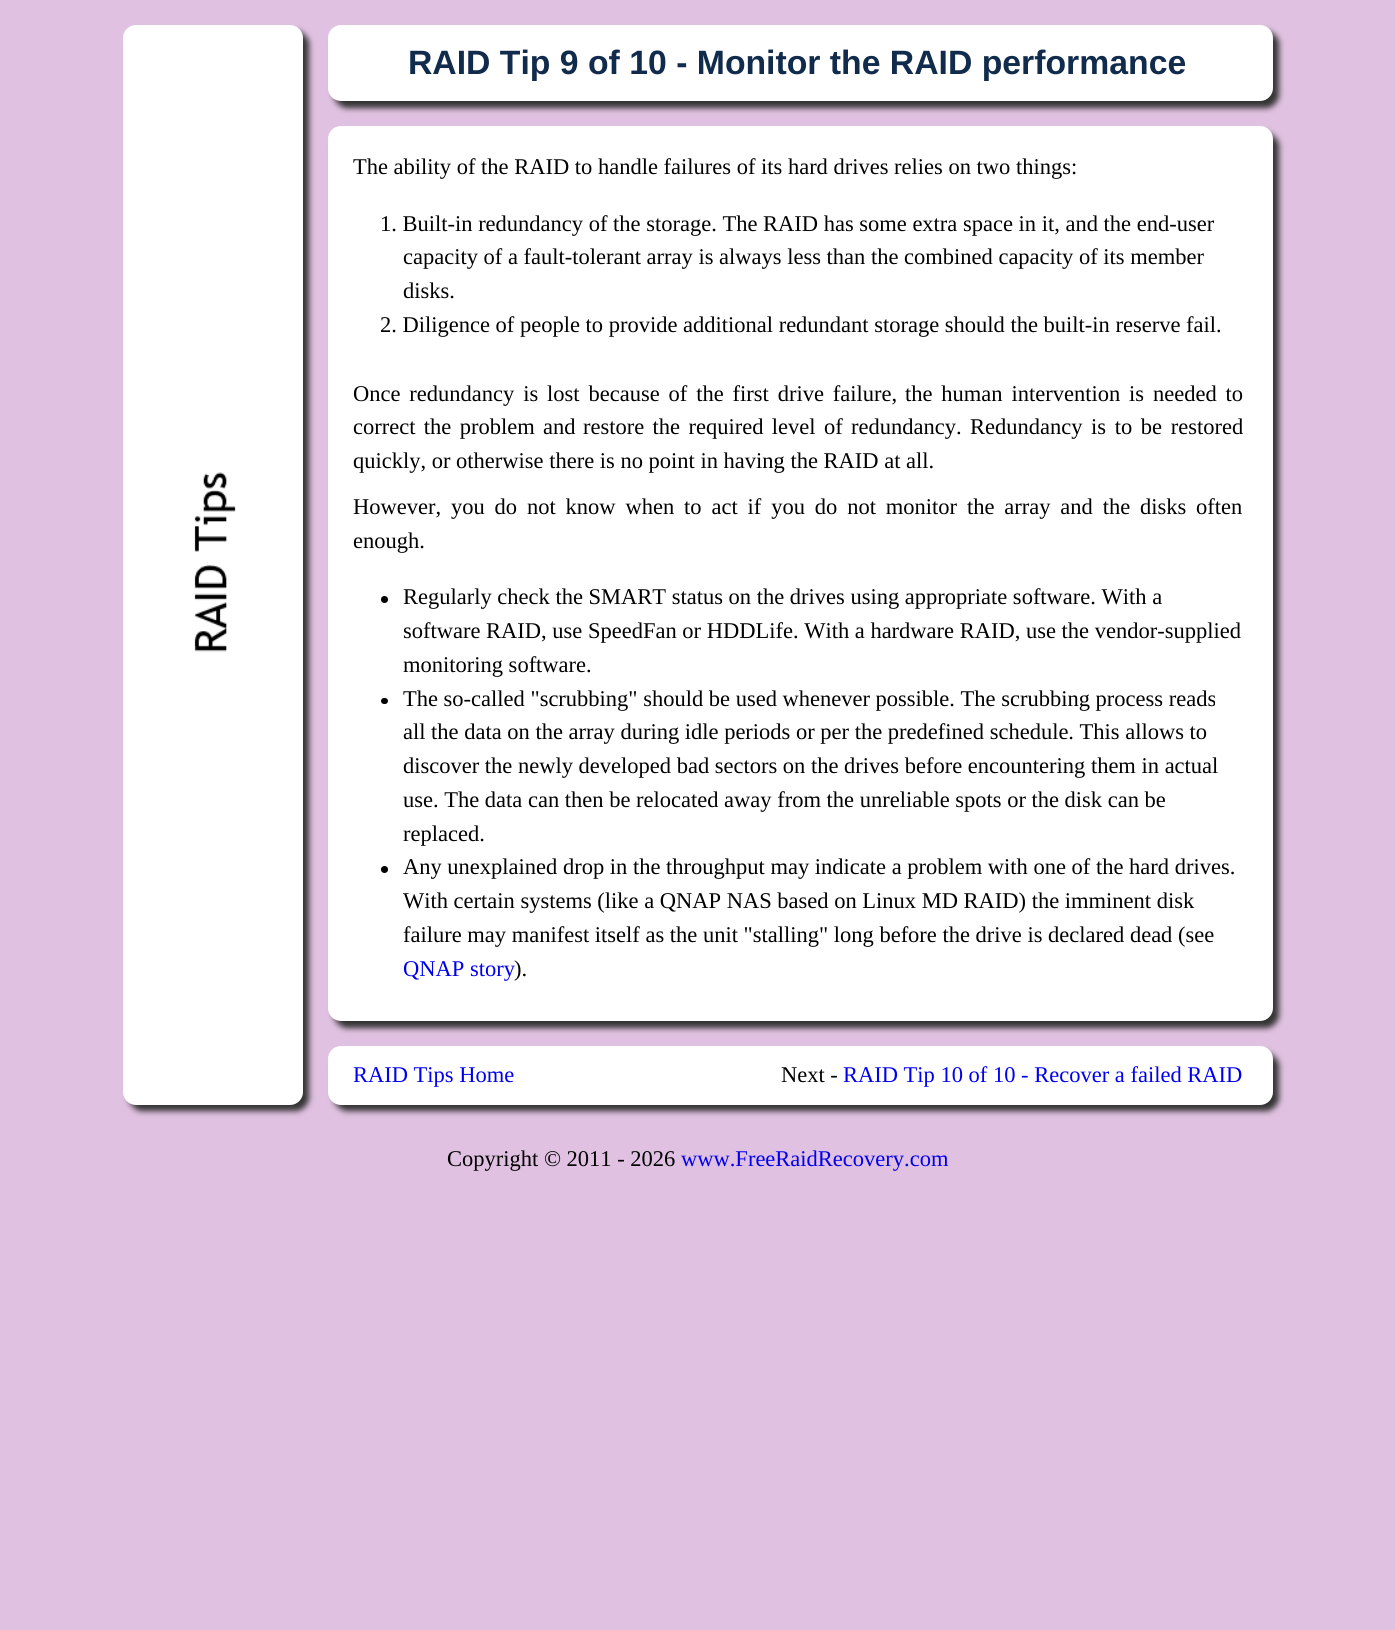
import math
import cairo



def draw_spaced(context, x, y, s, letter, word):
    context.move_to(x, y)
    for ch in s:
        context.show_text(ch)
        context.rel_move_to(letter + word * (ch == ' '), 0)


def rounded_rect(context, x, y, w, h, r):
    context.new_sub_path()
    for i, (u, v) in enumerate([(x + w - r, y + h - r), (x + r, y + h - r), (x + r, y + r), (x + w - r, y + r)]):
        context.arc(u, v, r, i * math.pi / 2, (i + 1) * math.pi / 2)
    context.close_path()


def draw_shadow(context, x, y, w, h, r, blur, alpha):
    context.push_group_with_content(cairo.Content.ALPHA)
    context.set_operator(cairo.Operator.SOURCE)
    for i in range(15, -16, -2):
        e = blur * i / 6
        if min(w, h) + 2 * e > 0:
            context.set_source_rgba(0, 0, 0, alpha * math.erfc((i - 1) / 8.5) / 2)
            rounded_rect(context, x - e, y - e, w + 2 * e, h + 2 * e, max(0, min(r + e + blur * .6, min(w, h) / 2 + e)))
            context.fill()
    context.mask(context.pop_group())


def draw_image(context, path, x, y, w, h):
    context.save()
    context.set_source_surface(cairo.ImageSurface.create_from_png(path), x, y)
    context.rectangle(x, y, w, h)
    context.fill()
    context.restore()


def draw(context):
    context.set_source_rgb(224 / 255, 193 / 255, 225 / 255)
    context.paint()
    context.set_source_rgb(51 / 255, 51 / 255, 51 / 255)
    draw_shadow(context, 129, 31, 180, 1080, 13, 3, 1)
    context.set_source_rgb(1, 1, 1)
    rounded_rect(context, 123, 25, 180, 1080, 13)
    context.fill()
    draw_image(context, "images/1.png", 194, 472, 42, 180)
    context.set_source_rgb(51 / 255, 51 / 255, 51 / 255)
    draw_shadow(context, 334, 31, 945, 77, 13, 3, 1)
    context.set_source_rgb(1, 1, 1)
    rounded_rect(context, 328, 25, 945, 76, 13)
    context.fill()
    context.set_source_rgb(51 / 255, 51 / 255, 51 / 255)
    draw_shadow(context, 334, 133, 945, 895, 13, 3, 1)
    context.set_source_rgb(1, 1, 1)
    rounded_rect(context, 328, 126, 945, 895, 13)
    context.fill()
    context.set_source_rgb(0, 0, 0)
    context.arc(384.5, 599.5, 3.5, 0, 2 * math.pi)
    context.fill()
    rounded_rect(context, 381, 698, 7, 6, 3)
    context.fill()
    context.arc(384.5, 869.5, 3.5, 0, 2 * math.pi)
    context.fill()
    context.set_source_rgb(51 / 255, 51 / 255, 51 / 255)
    draw_shadow(context, 334, 1053, 945, 58, 13, 3, 1)
    context.set_source_rgb(1, 1, 1)
    rounded_rect(context, 328, 1046, 945, 59, 13)
    context.fill()
    context.select_font_face("Liberation Sans", cairo.FontSlant.NORMAL, cairo.FontWeight.BOLD)
    context.set_font_size(33.75)
    context.set_source_rgb(17 / 255, 43 / 255, 76 / 255)
    context.move_to(408, 74)
    context.show_text("RAID Tip 9 of 10 - Monitor the RAID performance")
    context.select_font_face("Liberation Serif")
    context.set_font_size(22.5)
    context.set_source_rgb(0, 0, 0)
    context.move_to(353, 174)
    context.show_text("The ability of the RAID to handle failures of its hard drives relies on two things:")
    context.move_to(380, 231)
    context.show_text("1. Built-in redundancy of the storage. The RAID has some extra space in it, and the end-user")
    context.move_to(403, 264)
    context.show_text("capacity of a fault-tolerant array is always less than the combined capacity of its member")
    context.move_to(403, 298)
    context.show_text("disks.")
    context.move_to(380, 332)
    context.show_text("2. Diligence of people to provide additional redundant storage should the built-in reserve fail.")
    draw_spaced(context, 353, 401, "Once redundancy is lost because of the first drive failure,", 0, 3.25)
    draw_spaced(context, 905, 401, "the human intervention is needed to", 0, 3.25)
    draw_spaced(context, 353, 434, "correct the problem and", 0, 2.75)
    draw_spaced(context, 583, 434, "restore the required level of redundancy.", 0, 2.75)
    draw_spaced(context, 970, 434, "Redundancy is to be restored", 0, 3)
    context.move_to(353, 468)
    context.show_text("quickly, or otherwise there is no point in having the RAID at all.")
    draw_spaced(context, 353, 514, "However, you do not know when to act if you do not monitor the array and the disks", 0, 4.25)
    context.move_to(1196, 514)
    context.show_text("often")
    context.move_to(353, 548)
    context.show_text("enough.")
    context.move_to(403, 604)
    context.show_text("Regularly check the SMART status on the drives using appropriate software. With a")
    context.move_to(403, 638)
    context.show_text("software RAID, use SpeedFan or HDDLife. With a hardware RAID, use the vendor-supplied")
    context.move_to(403, 672)
    context.show_text("monitoring software.")
    context.move_to(403, 706)
    context.show_text("The so-called \"scrubbing\" should be used whenever possible. The scrubbing process reads")
    context.move_to(403, 739)
    context.show_text("all the data on the array during idle periods or per the predefined schedule. This allows to")
    context.move_to(403, 773)
    context.show_text("discover the newly developed bad sectors on the drives before encountering them in actual")
    context.move_to(403, 807)
    context.show_text("use. The data can then be relocated away from the unreliable spots or the disk can be")
    context.move_to(403, 841)
    context.show_text("replaced.")
    context.move_to(403, 874)
    context.show_text("Any unexplained drop in the throughput may indicate a problem with one of the hard drives.")
    context.move_to(403, 908)
    context.show_text("With certain systems (like a QNAP NAS based on Linux MD RAID) the imminent disk")
    context.move_to(403, 942)
    context.show_text("failure may manifest itself as the unit \"stalling\" long before the drive is declared dead (see")
    context.set_source_rgb(0, 0, 238 / 255)
    context.move_to(403, 976)
    context.show_text("QNAP story")
    context.set_source_rgb(0, 0, 0)
    context.move_to(514, 976)
    context.show_text(").")
    context.set_source_rgb(0, 0, 238 / 255)
    context.move_to(353, 1082)
    context.show_text("RAID Tips Home")
    context.set_source_rgb(0, 0, 0)
    context.move_to(781, 1082)
    context.show_text("Next -")
    context.set_source_rgb(0, 0, 238 / 255)
    context.move_to(843, 1082)
    context.show_text("RAID Tip 10 of 10 - Recover a failed RAID")
    context.set_source_rgb(0, 0, 0)
    context.move_to(447, 1166)
    context.show_text("Copyright © 2011 - 2026")
    context.set_source_rgb(0, 0, 238 / 255)
    context.move_to(681, 1166)
    context.show_text("www.FreeRaidRecovery.com")


surface = cairo.ImageSurface(cairo.Format.RGB24, 1395, 1630)
context = cairo.Context(surface)
options = cairo.FontOptions()
options.set_hint_metrics(cairo.HintMetrics.OFF)
options.set_hint_style(cairo.HintStyle.NONE)
context.set_font_options(options)
context.set_miter_limit(4)
draw(context)
surface.write_to_png("out.png")
